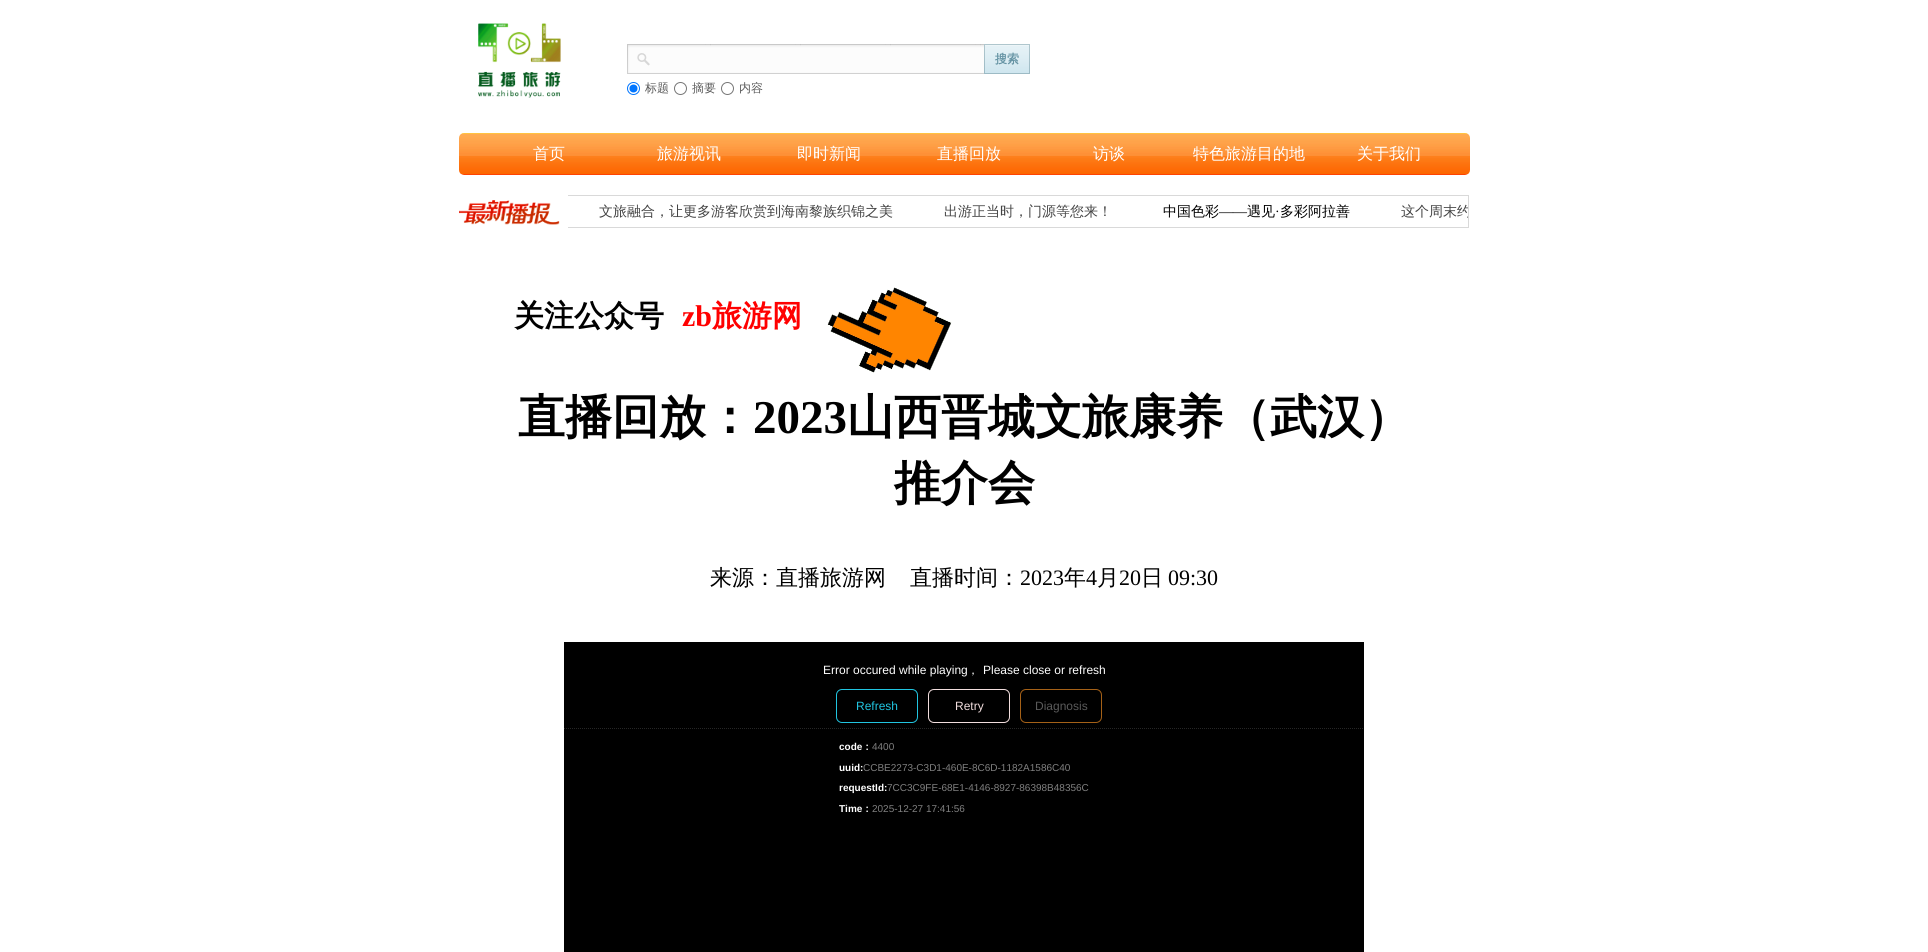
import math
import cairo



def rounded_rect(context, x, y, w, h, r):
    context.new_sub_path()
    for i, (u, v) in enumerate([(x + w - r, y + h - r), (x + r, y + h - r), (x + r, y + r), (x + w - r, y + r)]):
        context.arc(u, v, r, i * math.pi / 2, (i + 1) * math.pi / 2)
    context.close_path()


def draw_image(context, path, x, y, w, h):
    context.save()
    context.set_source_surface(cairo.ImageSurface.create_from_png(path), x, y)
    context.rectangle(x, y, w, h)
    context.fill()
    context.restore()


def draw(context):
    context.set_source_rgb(1, 1, 1)
    context.paint()
    draw_image(context, "images/1.png", 478, 23, 83, 75)
    draw_image(context, "images/2.png", 627, 44, 25, 30)
    draw_image(context, "images/3.png", 652, 44, 332, 30)
    draw_image(context, "images/4.png", 984, 44, 1, 30)
    draw_image(context, "images/5.png", 985, 44, 44, 30)
    draw_image(context, "images/4.png", 1029, 44, 1, 30)
    context.arc(633.5, 88.5, 6, 0, 2 * math.pi)
    context.set_source_rgb(0, 117 / 255, 1)
    context.set_line_width(1)
    context.stroke()
    context.arc(633.5, 88.5, 4, 0, 2 * math.pi)
    context.fill()
    context.arc(680.5, 88.5, 6, 0, 2 * math.pi)
    context.set_source_rgb(118 / 255, 118 / 255, 118 / 255)
    context.stroke()
    context.arc(727.5, 88.5, 6, 0, 2 * math.pi)
    context.stroke()
    draw_image(context, "images/6.png", 459, 133, 1011, 42)
    draw_image(context, "images/7.png", 459, 200, 101, 25)
    context.set_source_rgb(217 / 255, 217 / 255, 217 / 255)
    context.rectangle(568, 195, 901, 1)
    context.fill()
    context.rectangle(1468, 195, 1, 33)
    context.fill()
    context.rectangle(568, 227, 901, 1)
    context.fill()
    draw_image(context, "images/8.png", 827, 287, 125, 86)
    context.set_source_rgb(0, 0, 0)
    context.rectangle(564, 642, 800, 310)
    context.fill()
    context.new_path()
    context.move_to(564, 728.5)
    context.line_to(1364, 728.5)
    context.set_source_rgb(38 / 255, 38 / 255, 38 / 255)
    context.set_dash([1, 1])
    context.stroke()
    rounded_rect(context, 836.5, 689.5, 81, 33, 5.5)
    context.set_source_rgb(33 / 255, 197 / 255, 224 / 255)
    context.set_dash([])
    context.stroke()
    rounded_rect(context, 928.5, 689.5, 81, 33, 5.5)
    context.set_source_rgb(242 / 255, 222 / 255, 222 / 255)
    context.stroke()
    rounded_rect(context, 1020.5, 689.5, 81, 33, 5.5)
    context.set_source_rgb(165 / 255, 97 / 255, 23 / 255)
    context.stroke()
    context.select_font_face("WenQuanYi Zen Hei", cairo.FontSlant.NORMAL, cairo.FontWeight.BOLD)
    context.set_font_size(12)
    context.set_source_rgb(102 / 255, 148 / 255, 164 / 255)
    context.move_to(995, 63)
    context.show_text("搜索")
    context.select_font_face("WenQuanYi Zen Hei Medium")
    context.set_source_rgb(90 / 255, 90 / 255, 90 / 255)
    context.move_to(645, 92)
    context.show_text("标题")
    context.move_to(692, 92)
    context.show_text("摘要")
    context.move_to(739, 92)
    context.show_text("内容")
    context.set_font_size(16)
    context.set_source_rgb(1, 1, 1)
    context.move_to(533, 159)
    context.show_text("首页")
    context.move_to(657, 159)
    context.show_text("旅游视讯")
    context.move_to(797, 159)
    context.show_text("即时新闻")
    context.move_to(937, 159)
    context.show_text("直播回放")
    context.move_to(1093, 159)
    context.show_text("访谈")
    context.move_to(1193, 159)
    context.show_text("特色旅游目的地")
    context.move_to(1357, 159)
    context.show_text("关于我们")
    context.set_font_size(14)
    context.set_source_rgb(67 / 255, 67 / 255, 67 / 255)
    context.move_to(599, 216)
    context.show_text("文旅融合，让更多游客欣赏到海南黎族织锦之美")
    context.move_to(944, 216)
    context.show_text("出游正当时，门源等您来！")
    context.set_source_rgb(0, 0, 0)
    context.move_to(1163, 216)
    context.show_text("中国色彩")
    context.select_font_face("Liberation Serif")
    context.move_to(1219, 216)
    context.show_text("——")
    context.select_font_face("WenQuanYi Zen Hei Medium")
    context.move_to(1247, 216)
    context.show_text("遇见")
    context.select_font_face("Liberation Serif")
    context.move_to(1275, 216)
    context.show_text("·")
    context.select_font_face("WenQuanYi Zen Hei Medium")
    context.move_to(1280, 216)
    context.show_text("多彩阿拉善")
    context.save()
    context.rectangle(568, 196, 900, 31)
    context.clip()
    context.set_source_rgb(67 / 255, 67 / 255, 67 / 255)
    context.move_to(1401, 216)
    context.show_text("这个周末约")
    context.restore()
    context.select_font_face("WenQuanYi Zen Hei", cairo.FontSlant.NORMAL, cairo.FontWeight.BOLD)
    context.set_font_size(30)
    context.move_to(514, 326)
    context.show_text("关注公众号")
    context.select_font_face("Liberation Serif", cairo.FontSlant.NORMAL, cairo.FontWeight.BOLD)
    context.set_source_rgb(1, 0, 0)
    context.move_to(682, 326)
    context.show_text("zb")
    context.select_font_face("WenQuanYi Zen Hei", cairo.FontSlant.NORMAL, cairo.FontWeight.BOLD)
    context.move_to(712, 326)
    context.show_text("旅游网")
    context.set_font_size(47)
    context.set_source_rgb(0, 0, 0)
    context.move_to(518, 433)
    context.show_text("直播回放：")
    context.select_font_face("Liberation Serif", cairo.FontSlant.NORMAL, cairo.FontWeight.BOLD)
    context.move_to(753, 433)
    context.show_text("2023")
    context.select_font_face("WenQuanYi Zen Hei", cairo.FontSlant.NORMAL, cairo.FontWeight.BOLD)
    context.move_to(847, 433)
    context.show_text("山西晋城文旅康养（武汉）")
    context.move_to(894, 499)
    context.show_text("推介会")
    context.select_font_face("WenQuanYi Zen Hei Medium")
    context.set_font_size(22)
    context.move_to(710, 585)
    context.show_text("来源：直播旅游网")
    context.move_to(910, 585)
    context.show_text("直播时间：")
    context.select_font_face("Liberation Serif")
    context.move_to(1020, 585)
    context.show_text("2023")
    context.select_font_face("WenQuanYi Zen Hei Medium")
    context.move_to(1064, 585)
    context.show_text("年")
    context.select_font_face("Liberation Serif")
    context.move_to(1086, 585)
    context.show_text("4")
    context.select_font_face("WenQuanYi Zen Hei Medium")
    context.move_to(1097, 585)
    context.show_text("月")
    context.select_font_face("Liberation Serif")
    context.move_to(1119, 585)
    context.show_text("20")
    context.select_font_face("WenQuanYi Zen Hei Medium")
    context.move_to(1141, 585)
    context.show_text("日")
    context.select_font_face("Liberation Serif")
    context.move_to(1168, 585)
    context.show_text("09:30")
    context.select_font_face("Liberation Sans")
    context.set_font_size(12)
    context.set_source_rgb(1, 1, 1)
    context.move_to(823, 674)
    context.show_text("Error occured while playing")
    context.select_font_face("WenQuanYi Zen Hei Medium")
    context.move_to(967, 674)
    context.show_text("，")
    context.select_font_face("Liberation Sans")
    context.move_to(983, 674)
    context.show_text("Please close or refresh")
    context.set_source_rgb(33 / 255, 197 / 255, 224 / 255)
    context.move_to(856, 710)
    context.show_text("Refresh")
    context.set_source_rgb(242 / 255, 222 / 255, 222 / 255)
    context.move_to(955, 710)
    context.show_text("Retry")
    context.set_source_rgb(90 / 255, 90 / 255, 90 / 255)
    context.move_to(1035, 710)
    context.show_text("Diagnosis")
    context.select_font_face("Liberation Sans", cairo.FontSlant.NORMAL, cairo.FontWeight.BOLD)
    context.set_font_size(10)
    context.set_source_rgb(1, 1, 1)
    context.move_to(839, 750)
    context.show_text("code")
    context.select_font_face("WenQuanYi Zen Hei", cairo.FontSlant.NORMAL, cairo.FontWeight.BOLD)
    context.move_to(862, 750)
    context.show_text("：")
    context.select_font_face("Liberation Sans")
    context.set_source_rgb(128 / 255, 128 / 255, 128 / 255)
    context.move_to(872, 750)
    context.show_text("4400")
    context.select_font_face("Liberation Sans", cairo.FontSlant.NORMAL, cairo.FontWeight.BOLD)
    context.set_source_rgb(1, 1, 1)
    context.move_to(839, 771)
    context.show_text("uuid:")
    context.select_font_face("Liberation Sans")
    context.set_source_rgb(128 / 255, 128 / 255, 128 / 255)
    context.move_to(863, 771)
    context.show_text("CCBE2273-C3D1-460E-8C6D-1182A1586C40")
    context.select_font_face("Liberation Sans", cairo.FontSlant.NORMAL, cairo.FontWeight.BOLD)
    context.set_source_rgb(1, 1, 1)
    context.move_to(839, 791)
    context.show_text("requestId:")
    context.select_font_face("Liberation Sans")
    context.set_source_rgb(128 / 255, 128 / 255, 128 / 255)
    context.move_to(887, 791)
    context.show_text("7CC3C9FE-68E1-4146-8927-86398B48356C")
    context.select_font_face("Liberation Sans", cairo.FontSlant.NORMAL, cairo.FontWeight.BOLD)
    context.set_source_rgb(1, 1, 1)
    context.move_to(839, 812)
    context.show_text("Time")
    context.select_font_face("WenQuanYi Zen Hei", cairo.FontSlant.NORMAL, cairo.FontWeight.BOLD)
    context.move_to(862, 812)
    context.show_text("：")
    context.select_font_face("Liberation Sans")
    context.set_source_rgb(128 / 255, 128 / 255, 128 / 255)
    context.move_to(872, 812)
    context.show_text("2025-12-27 17:41:56")


surface = cairo.ImageSurface(cairo.Format.RGB24, 1928, 952)
context = cairo.Context(surface)
options = cairo.FontOptions()
options.set_hint_metrics(cairo.HintMetrics.OFF)
options.set_hint_style(cairo.HintStyle.NONE)
context.set_font_options(options)
context.set_miter_limit(4)
draw(context)
surface.write_to_png("out.png")
